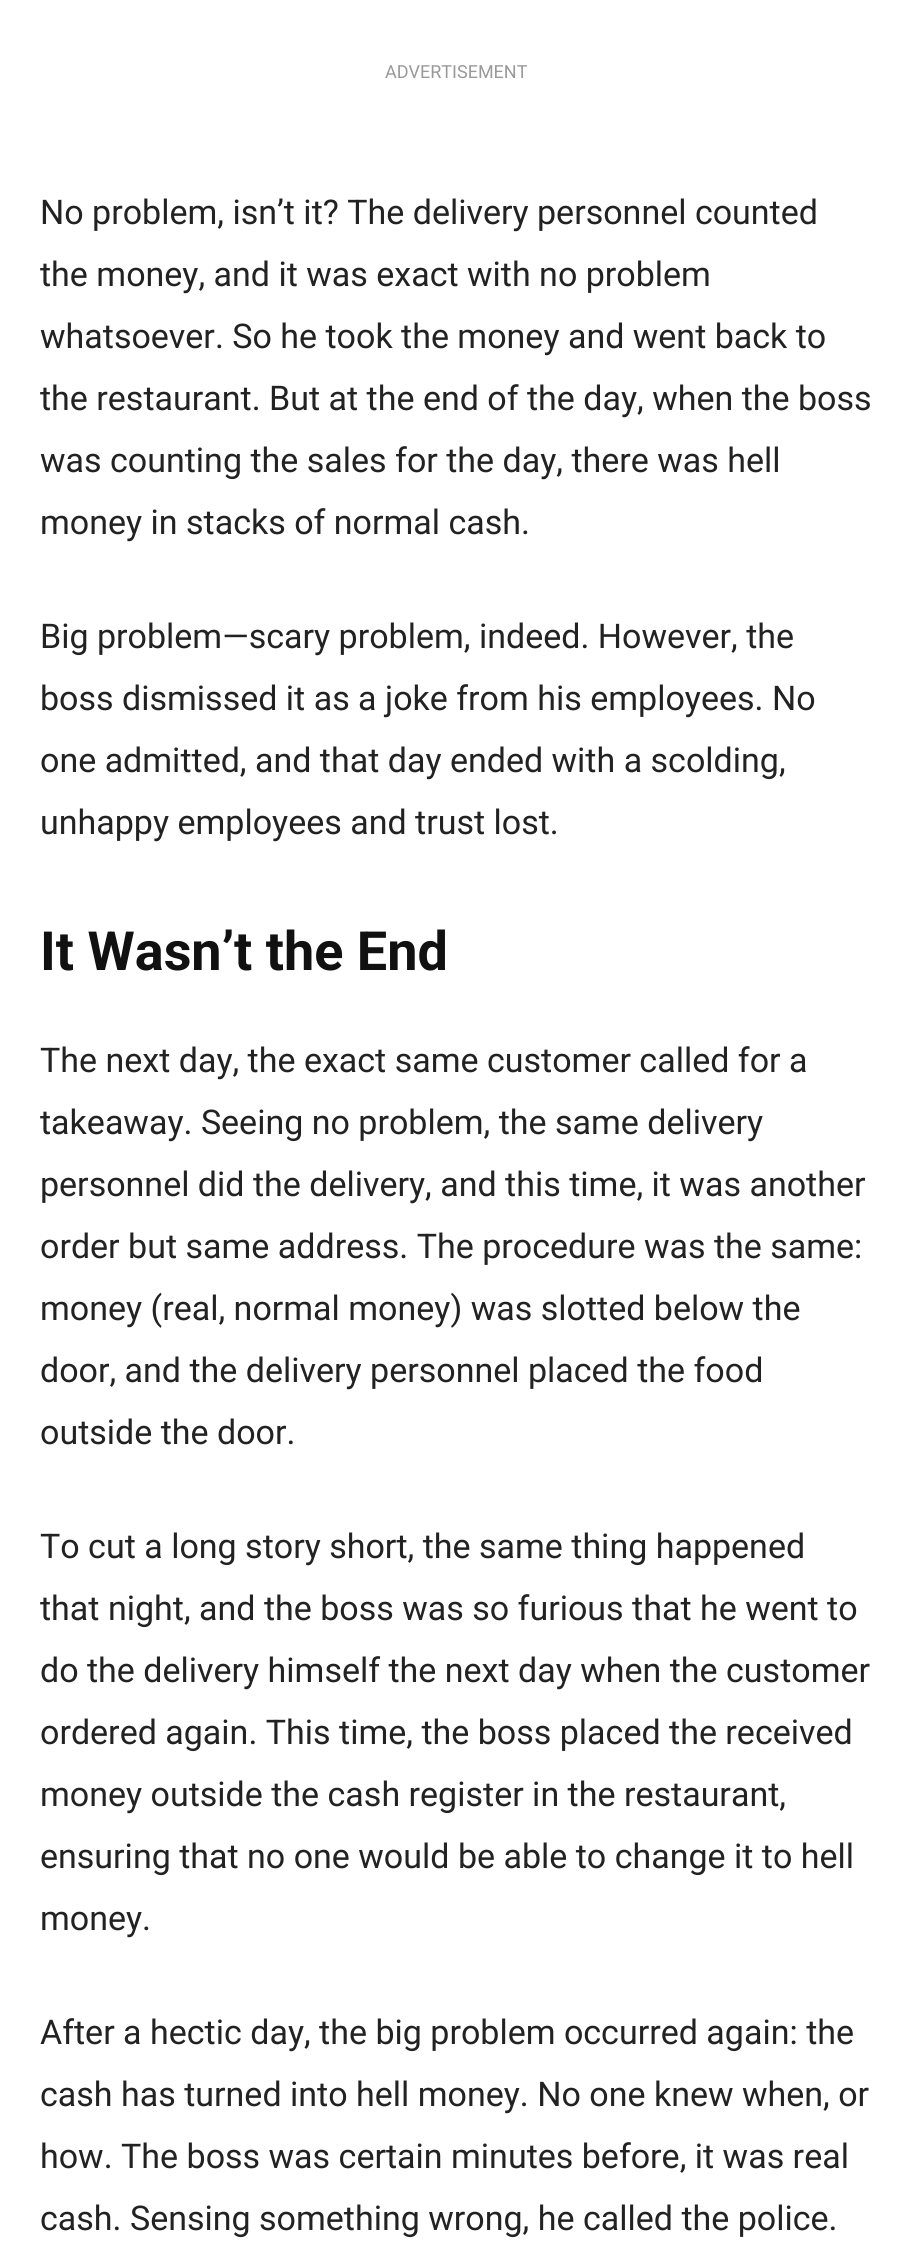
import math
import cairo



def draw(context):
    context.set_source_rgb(1, 1, 1)
    context.paint()
    context.select_font_face("Roboto")
    context.set_font_size(18)
    context.set_source_rgb(153 / 255, 153 / 255, 153 / 255)
    context.move_to(385, 78)
    context.show_text("ADVERTISEMENT")
    context.set_font_size(34)
    context.set_source_rgb(34 / 255, 34 / 255, 34 / 255)
    context.move_to(40, 224)
    context.show_text("No problem, isn’t it? The delivery personnel counted")
    context.move_to(40, 286)
    context.show_text("the money, and it was exact with no problem")
    context.move_to(40, 348)
    context.show_text("whatsoever. So he took the money and went back to")
    context.move_to(40, 410)
    context.show_text("the restaurant. But at the end of the day, when the boss")
    context.move_to(40, 472)
    context.show_text("was counting the sales for the day, there was hell")
    context.move_to(40, 534)
    context.show_text("money in stacks of normal cash.")
    context.move_to(40, 648)
    context.show_text("Big problem—scary problem, indeed. However, the")
    context.move_to(40, 710)
    context.show_text("boss dismissed it as a joke from his employees. No")
    context.move_to(40, 772)
    context.show_text("one admitted, and that day ended with a scolding,")
    context.move_to(40, 834)
    context.show_text("unhappy employees and trust lost.")
    context.select_font_face("Roboto", cairo.FontSlant.NORMAL, cairo.FontWeight.BOLD)
    context.set_font_size(54)
    context.set_source_rgb(17 / 255, 17 / 255, 17 / 255)
    context.move_to(40, 970)
    context.show_text("It Wasn’t the End")
    context.select_font_face("Roboto")
    context.set_font_size(34)
    context.set_source_rgb(34 / 255, 34 / 255, 34 / 255)
    context.move_to(40, 1072)
    context.show_text("The next day, the exact same customer called for a")
    context.move_to(40, 1134)
    context.show_text("takeaway. Seeing no problem, the same delivery")
    context.move_to(40, 1196)
    context.show_text("personnel did the delivery, and this time, it was another")
    context.move_to(40, 1258)
    context.show_text("order but same address. The procedure was the same:")
    context.move_to(40, 1320)
    context.show_text("money (real, normal money) was slotted below the")
    context.move_to(40, 1382)
    context.show_text("door, and the delivery personnel placed the food")
    context.move_to(40, 1444)
    context.show_text("outside the door.")
    context.move_to(40, 1558)
    context.show_text("To cut a long story short, the same thing happened")
    context.move_to(40, 1620)
    context.show_text("that night, and the boss was so furious that he went to")
    context.move_to(40, 1682)
    context.show_text("do the delivery himself the next day when the customer")
    context.move_to(40, 1744)
    context.show_text("ordered again. This time, the boss placed the received")
    context.move_to(40, 1806)
    context.show_text("money outside the cash register in the restaurant,")
    context.move_to(40, 1868)
    context.show_text("ensuring that no one would be able to change it to hell")
    context.move_to(40, 1930)
    context.show_text("money.")
    context.move_to(40, 2044)
    context.show_text("After a hectic day, the big problem occurred again: the")
    context.move_to(40, 2106)
    context.show_text("cash has turned into hell money. No one knew when, or")
    context.move_to(40, 2168)
    context.show_text("how. The boss was certain minutes before, it was real")
    context.move_to(40, 2230)
    context.show_text("cash. Sensing something wrong, he called the police.")


surface = cairo.ImageSurface(cairo.Format.RGB24, 912, 2247)
context = cairo.Context(surface)
options = cairo.FontOptions()
options.set_hint_metrics(cairo.HintMetrics.OFF)
options.set_hint_style(cairo.HintStyle.NONE)
context.set_font_options(options)
context.set_miter_limit(4)
draw(context)
surface.write_to_png("out.png")
